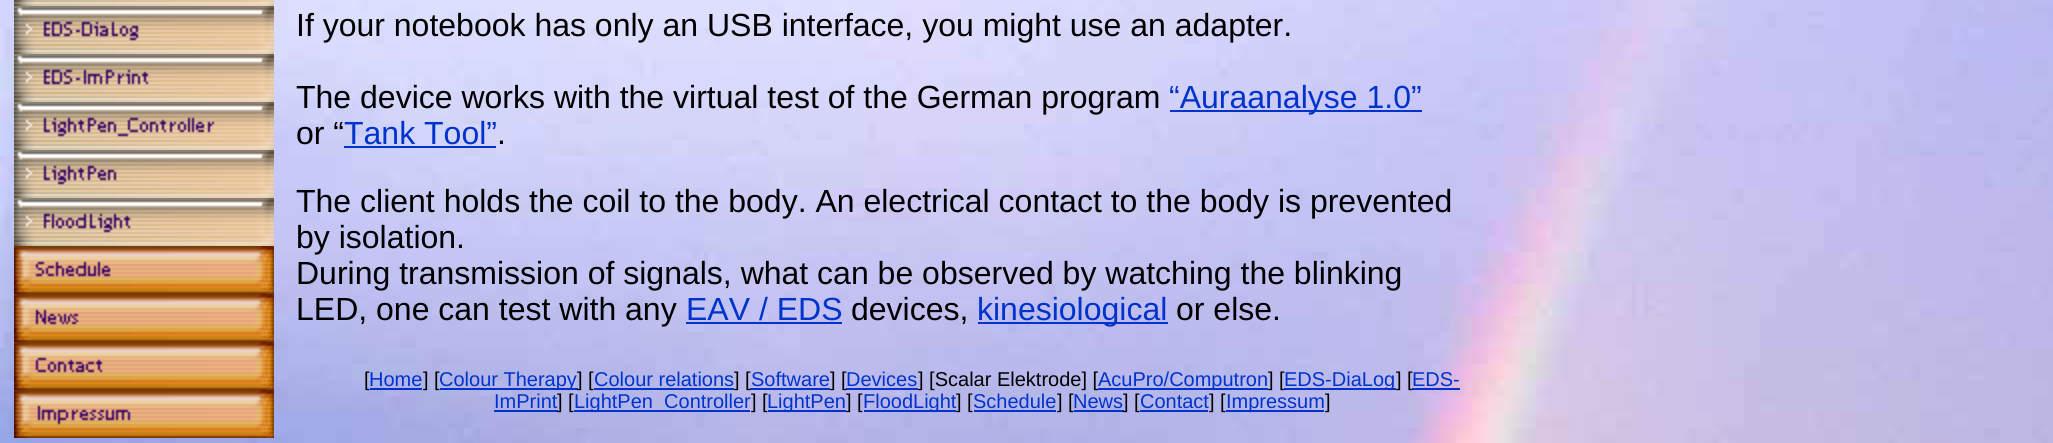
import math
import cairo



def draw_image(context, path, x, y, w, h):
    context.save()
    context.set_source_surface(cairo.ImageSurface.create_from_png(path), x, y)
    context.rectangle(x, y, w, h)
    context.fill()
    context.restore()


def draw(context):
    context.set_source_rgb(1, 1, 1)
    context.paint()
    draw_image(context, "images/1.png", 0, 0, 2053, 443)
    draw_image(context, "images/2.png", 14, 0, 260, 6)
    draw_image(context, "images/3.png", 14, 6, 260, 48)
    draw_image(context, "images/4.png", 14, 54, 260, 48)
    draw_image(context, "images/5.png", 14, 102, 260, 48)
    draw_image(context, "images/6.png", 14, 150, 260, 48)
    draw_image(context, "images/7.png", 14, 198, 260, 48)
    draw_image(context, "images/8.png", 14, 246, 260, 48)
    draw_image(context, "images/9.png", 14, 294, 260, 48)
    draw_image(context, "images/10.png", 14, 342, 260, 48)
    draw_image(context, "images/11.png", 14, 390, 260, 48)
    context.set_source_rgb(0, 51 / 255, 204 / 255)
    context.rectangle(1170, 110, 252, 2)
    context.fill()
    context.rectangle(344, 146, 152, 2)
    context.fill()
    context.rectangle(686, 322, 156, 2)
    context.fill()
    context.rectangle(978, 322, 190, 2)
    context.fill()
    context.rectangle(370, 388, 52, 2)
    context.fill()
    context.rectangle(440, 388, 138, 2)
    context.fill()
    context.rectangle(594, 388, 140, 2)
    context.fill()
    context.rectangle(1098, 388, 170, 2)
    context.fill()
    context.rectangle(494, 410, 64, 2)
    context.fill()
    context.rectangle(574, 410, 176, 2)
    context.fill()
    context.rectangle(768, 410, 78, 2)
    context.fill()
    context.rectangle(864, 410, 92, 2)
    context.fill()
    context.rectangle(974, 410, 82, 2)
    context.fill()
    context.rectangle(1074, 410, 50, 2)
    context.fill()
    context.rectangle(1140, 410, 68, 2)
    context.fill()
    context.rectangle(1226, 410, 98, 2)
    context.fill()
    context.select_font_face("Liberation Sans")
    context.set_font_size(32)
    context.set_source_rgb(0, 0, 0)
    context.move_to(296, 36)
    context.show_text("If your notebook has only an USB interface, you might use an adapter.")
    context.move_to(296, 108)
    context.show_text("The device works with the virtual test of the German program")
    context.set_source_rgb(0, 51 / 255, 204 / 255)
    context.move_to(1169, 108)
    context.show_text("“Auraanalyse 1.0”")
    context.set_source_rgb(0, 0, 0)
    context.move_to(296, 144)
    context.show_text("or “")
    context.set_source_rgb(0, 51 / 255, 204 / 255)
    context.move_to(344, 144)
    context.show_text("Tank Tool”")
    context.set_source_rgb(0, 0, 0)
    context.move_to(497, 144)
    context.show_text(".")
    context.move_to(296, 212)
    context.show_text("The client holds the coil to the body. An electrical contact to the body is prevented")
    context.move_to(296, 248)
    context.show_text("by isolation.")
    context.move_to(296, 284)
    context.show_text("During transmission of signals, what can be observed by watching the blinking")
    context.move_to(296, 320)
    context.show_text("LED, one can test with any")
    context.set_source_rgb(0, 51 / 255, 204 / 255)
    context.move_to(686, 320)
    context.show_text("EAV / EDS")
    context.set_source_rgb(0, 0, 0)
    context.move_to(851, 320)
    context.show_text("devices,")
    context.set_source_rgb(0, 51 / 255, 204 / 255)
    context.move_to(977, 320)
    context.show_text("kinesiological")
    context.set_source_rgb(0, 0, 0)
    context.move_to(1176, 320)
    context.show_text("or else.")
    context.set_font_size(20)
    context.move_to(364, 386)
    context.show_text("[")
    context.set_source_rgb(0, 51 / 255, 204 / 255)
    context.move_to(369, 386)
    context.show_text("Home")
    context.set_source_rgb(0, 0, 0)
    context.move_to(423, 386)
    context.show_text("] [")
    context.set_source_rgb(0, 51 / 255, 204 / 255)
    context.move_to(439, 386)
    context.show_text("Colour Therapy")
    context.set_source_rgb(0, 0, 0)
    context.move_to(577, 386)
    context.show_text("] [")
    context.set_source_rgb(0, 51 / 255, 204 / 255)
    context.move_to(594, 386)
    context.show_text("Colour relations")
    context.set_source_rgb(0, 0, 0)
    context.move_to(734, 386)
    context.show_text("] [")
    context.set_source_rgb(0, 51 / 255, 204 / 255)
    context.move_to(751, 386)
    context.show_text("Software")
    context.rectangle(750, 388, 80, 2)
    context.fill()
    context.set_source_rgb(0, 0, 0)
    context.move_to(830, 386)
    context.show_text("] [")
    context.set_source_rgb(0, 51 / 255, 204 / 255)
    context.move_to(846, 386)
    context.show_text("Devices")
    context.rectangle(846, 388, 72, 2)
    context.fill()
    context.set_source_rgb(0, 0, 0)
    context.move_to(918, 386)
    context.show_text("] [Scalar Elektrode] [")
    context.set_source_rgb(0, 51 / 255, 204 / 255)
    context.move_to(1098, 386)
    context.show_text("AcuPro/Computron")
    context.set_source_rgb(0, 0, 0)
    context.move_to(1268, 386)
    context.show_text("] [")
    context.set_source_rgb(0, 51 / 255, 204 / 255)
    context.rectangle(1284, 388, 112, 2)
    context.fill()
    context.move_to(1284, 386)
    context.show_text("EDS-DiaLog")
    context.set_source_rgb(0, 0, 0)
    context.move_to(1396, 386)
    context.show_text("] [")
    context.set_source_rgb(0, 51 / 255, 204 / 255)
    context.move_to(1412, 386)
    context.show_text("EDS-")
    context.rectangle(1412, 388, 48, 2)
    context.fill()
    context.move_to(494, 408)
    context.show_text("ImPrint")
    context.set_source_rgb(0, 0, 0)
    context.move_to(557, 408)
    context.show_text("] [")
    context.set_source_rgb(0, 51 / 255, 204 / 255)
    context.move_to(574, 408)
    context.show_text("LightPen_Controller")
    context.set_source_rgb(0, 0, 0)
    context.move_to(751, 408)
    context.show_text("] [")
    context.set_source_rgb(0, 51 / 255, 204 / 255)
    context.move_to(767, 408)
    context.show_text("LightPen")
    context.set_source_rgb(0, 0, 0)
    context.move_to(846, 408)
    context.show_text("] [")
    context.set_source_rgb(0, 51 / 255, 204 / 255)
    context.move_to(863, 408)
    context.show_text("FloodLight")
    context.set_source_rgb(0, 0, 0)
    context.move_to(956, 408)
    context.show_text("] [")
    context.set_source_rgb(0, 51 / 255, 204 / 255)
    context.move_to(973, 408)
    context.show_text("Schedule")
    context.set_source_rgb(0, 0, 0)
    context.move_to(1057, 408)
    context.show_text("] [")
    context.set_source_rgb(0, 51 / 255, 204 / 255)
    context.move_to(1073, 408)
    context.show_text("News")
    context.set_source_rgb(0, 0, 0)
    context.move_to(1123, 408)
    context.show_text("] [")
    context.set_source_rgb(0, 51 / 255, 204 / 255)
    context.move_to(1140, 408)
    context.show_text("Contact")
    context.set_source_rgb(0, 0, 0)
    context.move_to(1209, 408)
    context.show_text("] [")
    context.set_source_rgb(0, 51 / 255, 204 / 255)
    context.move_to(1226, 408)
    context.show_text("Impressum")
    context.set_source_rgb(0, 0, 0)
    context.move_to(1325, 408)
    context.show_text("]")


surface = cairo.ImageSurface(cairo.Format.RGB24, 2053, 443)
context = cairo.Context(surface)
options = cairo.FontOptions()
options.set_hint_metrics(cairo.HintMetrics.OFF)
options.set_hint_style(cairo.HintStyle.NONE)
context.set_font_options(options)
context.set_miter_limit(4)
draw(context)
surface.write_to_png("out.png")
